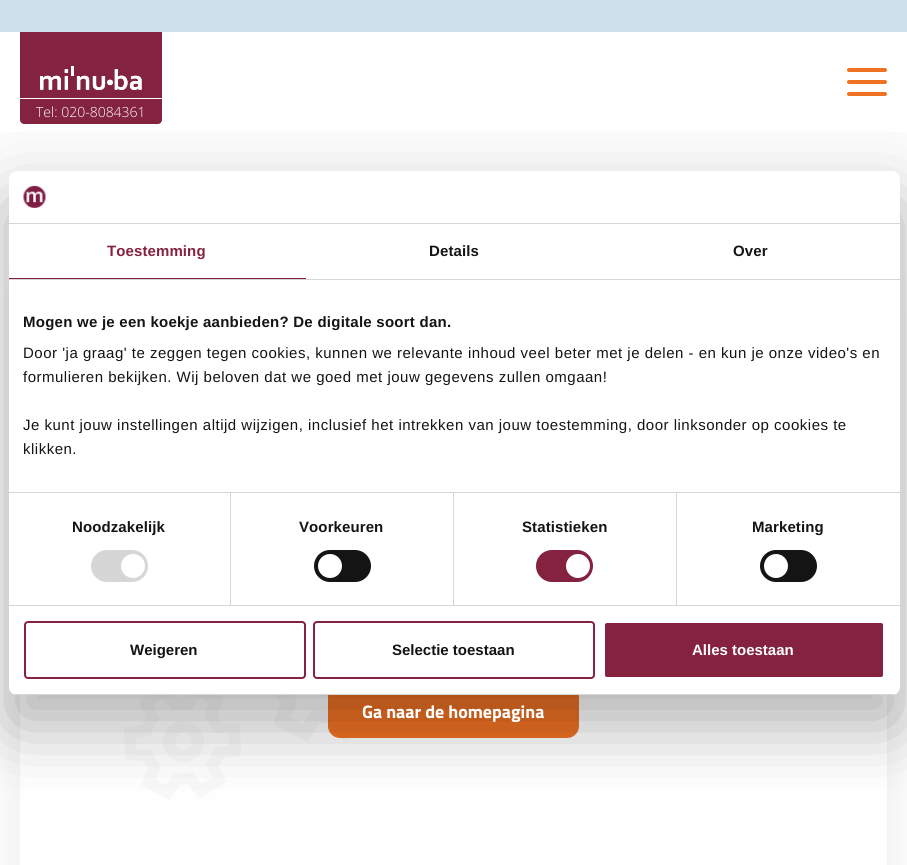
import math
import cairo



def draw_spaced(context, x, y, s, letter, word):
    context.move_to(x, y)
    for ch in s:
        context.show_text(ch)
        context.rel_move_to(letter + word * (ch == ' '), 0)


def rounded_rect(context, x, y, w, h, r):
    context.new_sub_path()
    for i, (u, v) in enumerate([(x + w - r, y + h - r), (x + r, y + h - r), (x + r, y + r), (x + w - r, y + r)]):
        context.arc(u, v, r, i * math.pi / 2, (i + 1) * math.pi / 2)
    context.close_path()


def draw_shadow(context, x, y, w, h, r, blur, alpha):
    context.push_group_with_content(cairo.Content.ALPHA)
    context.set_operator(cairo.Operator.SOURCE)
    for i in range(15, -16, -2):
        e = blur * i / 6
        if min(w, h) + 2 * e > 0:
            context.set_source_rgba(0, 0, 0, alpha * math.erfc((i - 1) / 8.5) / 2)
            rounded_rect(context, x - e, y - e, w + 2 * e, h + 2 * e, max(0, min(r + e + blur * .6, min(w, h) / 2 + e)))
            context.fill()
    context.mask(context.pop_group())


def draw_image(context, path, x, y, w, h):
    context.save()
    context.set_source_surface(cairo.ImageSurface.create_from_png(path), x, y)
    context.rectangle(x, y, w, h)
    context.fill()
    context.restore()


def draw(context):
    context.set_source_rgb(1, 1, 1)
    context.paint()
    context.set_source_rgb(204 / 255, 225 / 255, 236 / 255)
    context.rectangle(0, 0, 907, 32)
    context.fill()
    context.set_source_rgb(238 / 255, 113 / 255, 36 / 255)
    rounded_rect(context, 847, 68, 40, 4, 2)
    context.fill()
    rounded_rect(context, 847, 80, 40, 4, 2)
    context.fill()
    rounded_rect(context, 847, 92, 40, 4, 2)
    context.fill()
    context.set_source_rgb(132 / 255, 35 / 255, 64 / 255)
    context.rectangle(20, 32, 142, 66)
    context.fill()
    draw_image(context, "images/1.png", 40, 66, 102, 24)
    context.new_path()
    context.move_to(20, 99)
    context.line_to(162, 99)
    context.line_to(162, 120)
    context.curve_to(162, 122, 160, 124, 158, 124)
    context.line_to(24, 124)
    context.curve_to(22, 124, 20, 122, 20, 120)
    context.close_path()
    context.fill()
    context.set_source_rgb(251 / 255, 251 / 255, 251 / 255)
    context.rectangle(0, 132, 907, 733)
    context.fill()
    context.set_source_rgb(99 / 255, 106 / 255, 106 / 255)
    draw_shadow(context, 20, 274, 867, 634, 24, 15, 0.1)
    context.set_source_rgb(1, 1, 1)
    context.rectangle(20, 695, 867, 170)
    context.fill()
    draw_image(context, "images/3.png", 124, 695, 223, 105)
    context.set_source_rgb(238 / 255, 113 / 255, 36 / 255)
    rounded_rect(context, 329, 686, 249, 51, 11)
    context.fill_preserve()
    context.stroke()
    context.set_source_rgb(0, 0, 0)
    draw_shadow(context, 9, 203, 891, 524, 8, 34, 0.3)
    context.set_source_rgb(1, 1, 1)
    rounded_rect(context, 9, 171, 891, 524, 8)
    context.fill()
    context.set_source_rgb(214 / 255, 214 / 255, 214 / 255)
    context.rectangle(9, 223, 891, 1)
    context.fill()
    draw_image(context, "images/2.png", 23, 185, 23, 23)
    context.rectangle(9, 279, 891, 1)
    context.fill()
    context.set_source_rgb(133 / 255, 34 / 255, 64 / 255)
    context.rectangle(9, 278, 297, 1)
    context.fill()
    context.set_source_rgb(214 / 255, 214 / 255, 214 / 255)
    context.rectangle(9, 492, 891, 1)
    context.fill()
    context.rectangle(9, 605, 891, 1)
    context.fill()
    context.rectangle(230, 493, 1, 112)
    context.fill()
    rounded_rect(context, 91, 550, 57, 32, 16)
    context.fill()
    context.set_source_rgb(1, 1, 1)
    context.arc(133, 566, 12, 0, 2 * math.pi)
    context.fill()
    context.set_source_rgb(214 / 255, 214 / 255, 214 / 255)
    context.rectangle(453, 493, 1, 112)
    context.fill()
    context.set_source_rgb(20 / 255, 20 / 255, 20 / 255)
    rounded_rect(context, 314, 550, 57, 32, 16)
    context.fill()
    context.set_source_rgb(1, 1, 1)
    context.arc(330, 566, 12, 0, 2 * math.pi)
    context.fill()
    context.set_source_rgb(214 / 255, 214 / 255, 214 / 255)
    context.rectangle(676, 493, 1, 112)
    context.fill()
    context.set_source_rgb(133 / 255, 34 / 255, 64 / 255)
    rounded_rect(context, 536, 550, 57, 32, 16)
    context.fill()
    context.set_source_rgb(1, 1, 1)
    context.arc(578, 566, 12, 0, 2 * math.pi)
    context.fill()
    context.set_source_rgb(20 / 255, 20 / 255, 20 / 255)
    rounded_rect(context, 760, 550, 57, 32, 16)
    context.fill()
    context.set_source_rgb(1, 1, 1)
    context.arc(776, 566, 12, 0, 2 * math.pi)
    context.fill()
    context.save()
    rounded_rect(context, 9, 171, 891, 524, 8)
    context.clip()
    context.set_source_rgb(214 / 255, 214 / 255, 214 / 255)
    context.rectangle(9, 694, 891, 1)
    context.fill()
    context.restore()
    rounded_rect(context, 25, 622, 280, 56, 3)
    context.set_source_rgb(133 / 255, 34 / 255, 64 / 255)
    context.stroke()
    rounded_rect(context, 314, 622, 280, 56, 3)
    context.stroke()
    rounded_rect(context, 604, 622, 280, 56, 3)
    context.fill_preserve()
    context.set_source_rgb(1, 1, 1)
    context.stroke()
    context.select_font_face("Open Sans Light")
    context.set_font_size(14)
    context.move_to(36, 117)
    context.show_text("Tel: 020-8084361")
    context.select_font_face("Liberation Sans", cairo.FontSlant.NORMAL, cairo.FontWeight.BOLD)
    context.set_font_size(15)
    context.set_source_rgb(133 / 255, 34 / 255, 64 / 255)
    draw_spaced(context, 107, 256, "Toestemming", 0.1, 0)
    context.set_source_rgb(20 / 255, 20 / 255, 20 / 255)
    draw_spaced(context, 429, 256, "Details", 0.1, 0)
    draw_spaced(context, 733, 256, "Over", 0.1, 0)
    draw_spaced(context, 23, 327, "Mogen we je een koekje aanbieden? De digitale soort dan.", 0.25, 0)
    context.select_font_face("Liberation Sans")
    draw_spaced(context, 23, 358, "Door 'ja graag' te zeggen tegen cookies, kunnen we relevante inhoud veel beter met je delen - en kun je onze video's en", 0.5, 0)
    draw_spaced(context, 23, 382, "formulieren bekijken. Wij beloven dat we goed met jouw gegevens zullen omgaan!", 0.5, 0)
    draw_spaced(context, 23, 430, "Je kunt jouw instellingen altijd wijzigen, inclusief het intrekken van jouw toestemming, door linksonder op cookies te", 0.5, 0)
    draw_spaced(context, 23, 454, "klikken.", 0.5, 0)
    context.select_font_face("Liberation Sans", cairo.FontSlant.NORMAL, cairo.FontWeight.BOLD)
    draw_spaced(context, 72, 532, "Noodzakelijk", 0.1, 0)
    draw_spaced(context, 299, 532, "Voorkeuren", 0.1, 0)
    draw_spaced(context, 522, 532, "Statistieken", 0.1, 0)
    draw_spaced(context, 752, 532, "Marketing", 0.1, 0)
    context.move_to(130, 655)
    context.show_text("Weigeren")
    context.move_to(392, 655)
    context.show_text("Selectie toestaan")
    context.set_source_rgb(1, 1, 1)
    context.move_to(692, 655)
    context.show_text("Alles toestaan")
    context.select_font_face("Titillium Web", cairo.FontSlant.NORMAL, cairo.FontWeight.BOLD)
    context.set_font_size(18)
    context.move_to(362, 718)
    context.show_text("Ga naar de homepagina")


surface = cairo.ImageSurface(cairo.Format.RGB24, 907, 865)
context = cairo.Context(surface)
options = cairo.FontOptions()
options.set_hint_metrics(cairo.HintMetrics.OFF)
options.set_hint_style(cairo.HintStyle.NONE)
context.set_font_options(options)
context.set_miter_limit(4)
draw(context)
surface.write_to_png("out.png")
